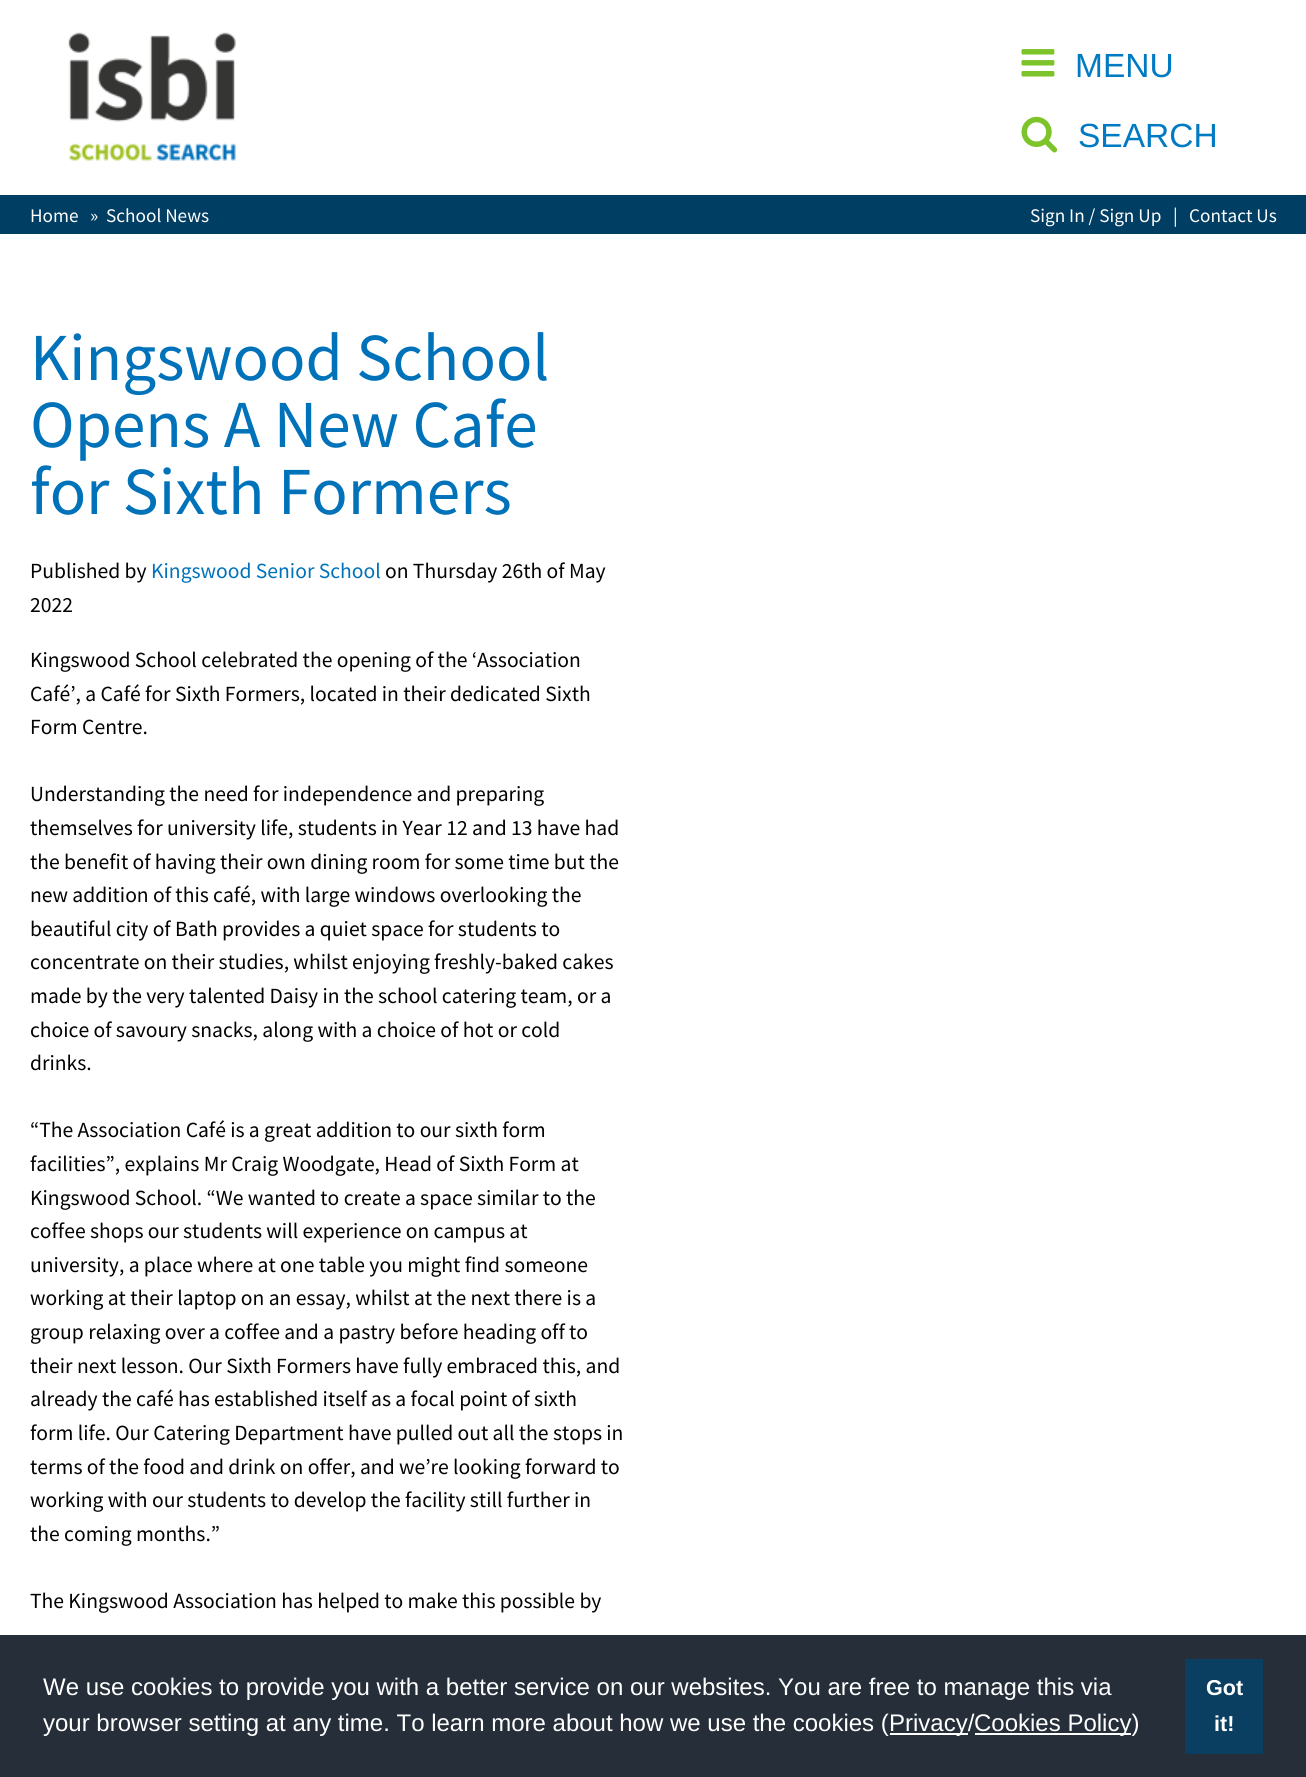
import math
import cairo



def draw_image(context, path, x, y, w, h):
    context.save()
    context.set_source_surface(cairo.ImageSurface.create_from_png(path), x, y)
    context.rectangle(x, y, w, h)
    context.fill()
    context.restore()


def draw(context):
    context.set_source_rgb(1, 1, 1)
    context.paint()
    draw_image(context, "images/1.png", 68, 32, 168, 129)
    draw_image(context, "images/2.png", 1021, 49, 34, 28)
    draw_image(context, "images/3.png", 1021, 116, 37, 37)
    context.set_source_rgb(0, 62 / 255, 99 / 255)
    context.rectangle(0, 195, 1306, 39)
    context.fill()
    context.set_source_rgb(37 / 255, 46 / 255, 57 / 255)
    context.rectangle(0, 1635, 1306, 142)
    context.fill()
    context.set_source_rgb(1, 1, 1)
    context.rectangle(890, 1733, 78, 2)
    context.fill()
    context.rectangle(975, 1733, 156, 2)
    context.fill()
    context.set_source_rgb(10 / 255, 63 / 255, 97 / 255)
    context.rectangle(1185, 1659, 78, 95)
    context.fill()
    context.select_font_face("Liberation Sans")
    context.set_font_size(33.5)
    context.set_source_rgb(0, 122 / 255, 195 / 255)
    context.move_to(1075, 77)
    context.show_text("MENU")
    context.move_to(1078, 147)
    context.show_text("SEARCH")
    context.select_font_face("Source Sans Pro")
    context.set_font_size(19.25)
    context.set_source_rgb(1, 1, 1)
    context.move_to(30, 222)
    context.show_text("Home")
    context.move_to(90, 222)
    context.show_text("»")
    context.move_to(106, 222)
    context.show_text("School News")
    context.move_to(1030, 222)
    context.show_text("Sign In / Sign Up")
    context.move_to(1173, 222)
    context.show_text("|")
    context.move_to(1189, 222)
    context.show_text("Contact Us")
    context.set_font_size(67.25)
    context.set_source_rgb(0, 114 / 255, 186 / 255)
    context.move_to(30, 380)
    context.show_text("Kingswood School")
    context.move_to(30, 447)
    context.show_text("Opens A New Cafe")
    context.move_to(30, 514)
    context.show_text("for Sixth Formers")
    context.set_font_size(21.6)
    context.set_source_rgb(1 / 255, 1 / 255, 1 / 255)
    context.move_to(30, 578)
    context.show_text("Published by")
    context.set_source_rgb(0, 114 / 255, 186 / 255)
    context.move_to(151, 578)
    context.show_text("Kingswood Senior School")
    context.set_source_rgb(1 / 255, 1 / 255, 1 / 255)
    context.move_to(385, 578)
    context.show_text("on Thursday 26th of May")
    context.move_to(30, 612)
    context.show_text("2022")
    context.move_to(30, 667)
    context.show_text("Kingswood School celebrated the opening of the ‘Association")
    context.move_to(30, 701)
    context.show_text("Café’, a Café for Sixth Formers, located in their dedicated Sixth")
    context.move_to(30, 734)
    context.show_text("Form Centre.")
    context.move_to(30, 801)
    context.show_text("Understanding the need for independence and preparing")
    context.move_to(30, 835)
    context.show_text("themselves for university life, students in Year 12 and 13 have had")
    context.move_to(30, 869)
    context.show_text("the benefit of having their own dining room for some time but the")
    context.move_to(30, 902)
    context.show_text("new addition of this café, with large windows overlooking the")
    context.move_to(30, 936)
    context.show_text("beautiful city of Bath provides a quiet space for students to")
    context.move_to(30, 969)
    context.show_text("concentrate on their studies, whilst enjoying freshly-baked cakes")
    context.move_to(30, 1003)
    context.show_text("made by the very talented Daisy in the school catering team, or a")
    context.move_to(30, 1037)
    context.show_text("choice of savoury snacks, along with a choice of hot or cold")
    context.move_to(30, 1070)
    context.show_text("drinks.")
    context.move_to(30, 1137)
    context.show_text("“The Association Café is a great addition to our sixth form")
    context.move_to(30, 1171)
    context.show_text("facilities”, explains Mr Craig Woodgate, Head of Sixth Form at")
    context.move_to(30, 1205)
    context.show_text("Kingswood School. “We wanted to create a space similar to the")
    context.move_to(30, 1238)
    context.show_text("coffee shops our students will experience on campus at")
    context.move_to(30, 1272)
    context.show_text("university, a place where at one table you might find someone")
    context.move_to(30, 1305)
    context.show_text("working at their laptop on an essay, whilst at the next there is a")
    context.move_to(30, 1339)
    context.show_text("group relaxing over a coffee and a pastry before heading off to")
    context.move_to(30, 1373)
    context.show_text("their next lesson. Our Sixth Formers have fully embraced this, and")
    context.move_to(30, 1406)
    context.show_text("already the café has established itself as a focal point of sixth")
    context.move_to(30, 1440)
    context.show_text("form life. Our Catering Department have pulled out all the stops in")
    context.move_to(30, 1474)
    context.show_text("terms of the food and drink on offer, and we’re looking forward to")
    context.move_to(30, 1507)
    context.show_text("working with our students to develop the facility still further in")
    context.move_to(30, 1541)
    context.show_text("the coming months.”")
    context.move_to(30, 1608)
    context.show_text("The Kingswood Association has helped to make this possible by")
    context.select_font_face("Liberation Sans")
    context.set_font_size(24)
    context.set_source_rgb(1, 1, 1)
    context.move_to(43, 1695)
    context.show_text("We use cookies to provide you with a better service on our websites. You are free to manage this via")
    context.move_to(43, 1731)
    context.show_text("your browser setting at any time. To learn more about how we use the cookies (")
    context.move_to(889, 1731)
    context.show_text("Privacy/")
    context.move_to(974, 1731)
    context.show_text("Cookies Policy)")
    context.select_font_face("Liberation Sans", cairo.FontSlant.NORMAL, cairo.FontWeight.BOLD)
    context.set_font_size(21.6)
    context.move_to(1206, 1695)
    context.show_text("Got")
    context.move_to(1214, 1731)
    context.show_text("it!")


surface = cairo.ImageSurface(cairo.Format.RGB24, 1306, 1777)
context = cairo.Context(surface)
options = cairo.FontOptions()
options.set_hint_metrics(cairo.HintMetrics.OFF)
options.set_hint_style(cairo.HintStyle.NONE)
context.set_font_options(options)
context.set_miter_limit(4)
draw(context)
surface.write_to_png("out.png")
